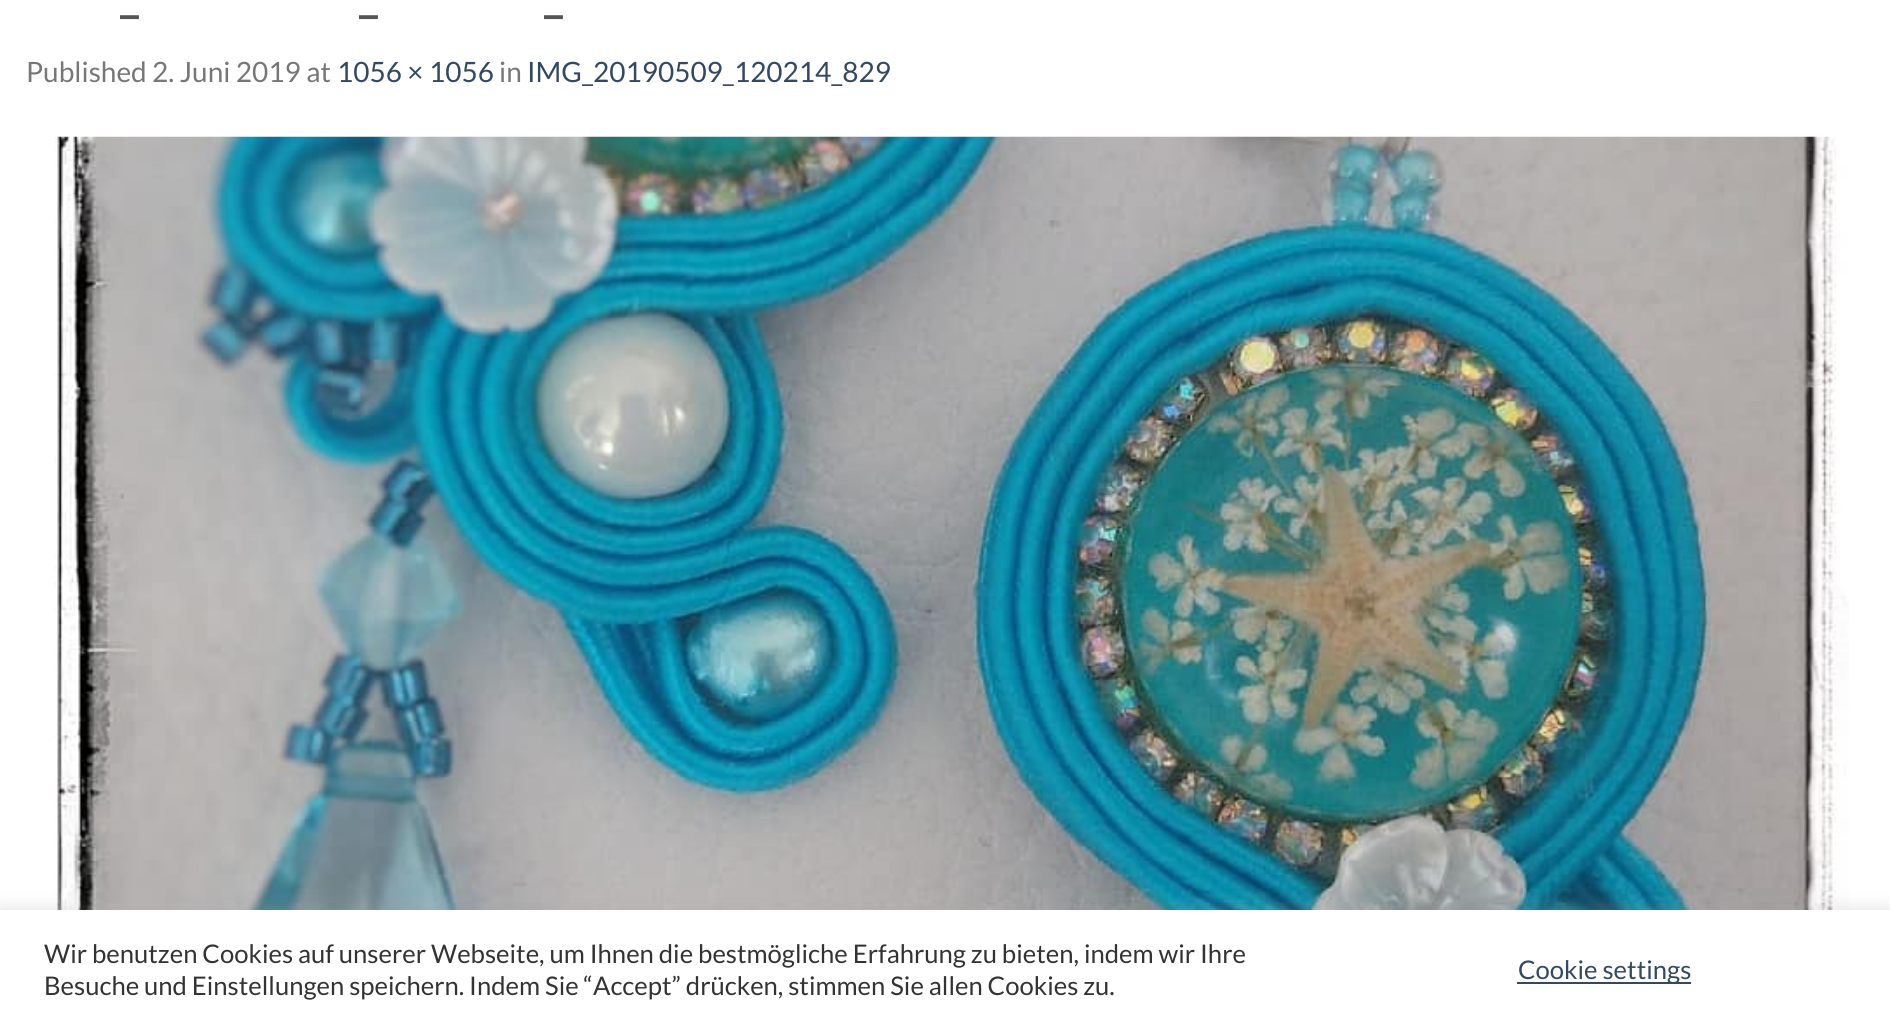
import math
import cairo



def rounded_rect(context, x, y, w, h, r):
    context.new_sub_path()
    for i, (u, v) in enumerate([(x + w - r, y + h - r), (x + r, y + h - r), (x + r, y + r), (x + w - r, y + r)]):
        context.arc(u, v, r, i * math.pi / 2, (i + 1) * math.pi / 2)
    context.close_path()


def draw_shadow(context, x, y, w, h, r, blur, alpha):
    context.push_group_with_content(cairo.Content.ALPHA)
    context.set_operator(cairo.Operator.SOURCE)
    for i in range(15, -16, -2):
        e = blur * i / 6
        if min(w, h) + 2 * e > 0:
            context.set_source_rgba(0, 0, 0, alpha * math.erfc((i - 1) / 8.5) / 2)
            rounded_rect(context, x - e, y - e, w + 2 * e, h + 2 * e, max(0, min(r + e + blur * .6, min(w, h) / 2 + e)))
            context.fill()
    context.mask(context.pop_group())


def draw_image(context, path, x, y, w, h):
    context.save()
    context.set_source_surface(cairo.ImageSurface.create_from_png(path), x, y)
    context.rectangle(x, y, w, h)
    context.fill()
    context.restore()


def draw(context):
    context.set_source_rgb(1, 1, 1)
    context.paint()
    draw_image(context, "images/1.png", 54, 136, 1795, 774)
    context.set_source_rgb(172 / 255, 171 / 255, 171 / 255)
    draw_shadow(context, 0, 908, 1890, 121, 0, 9, 0.3)
    context.set_source_rgb(1, 1, 1)
    context.rectangle(0, 910, 1890, 120)
    context.fill()
    context.set_source_rgb(51 / 255, 72 / 255, 98 / 255)
    context.rectangle(1517, 982, 174, 2)
    context.fill()
    context.select_font_face("Lato", cairo.FontSlant.NORMAL, cairo.FontWeight.BOLD)
    context.set_font_size(48)
    context.set_source_rgb(85 / 255, 85 / 255, 85 / 255)
    context.move_to(120, 12)
    context.show_text("_")
    context.move_to(359, 12)
    context.show_text("_")
    context.move_to(544, 12)
    context.show_text("_")
    context.select_font_face("Lato")
    context.set_font_size(28)
    context.set_source_rgb(119 / 255, 119 / 255, 119 / 255)
    context.move_to(26, 82)
    context.show_text("Published 2. Juni 2019 at")
    context.set_source_rgb(51 / 255, 72 / 255, 98 / 255)
    context.move_to(337, 82)
    context.show_text("1056 × 1056")
    context.set_source_rgb(119 / 255, 119 / 255, 119 / 255)
    context.move_to(499, 82)
    context.show_text("in")
    context.set_source_rgb(51 / 255, 72 / 255, 98 / 255)
    context.move_to(527, 82)
    context.show_text("IMG_20190509_120214_829")
    context.set_font_size(25.65)
    context.set_source_rgb(51 / 255, 51 / 255, 51 / 255)
    context.move_to(44, 963)
    context.show_text("Wir benutzen Cookies auf unserer Webseite, um Ihnen die bestmögliche Erfahrung zu bieten, indem wir Ihre")
    context.move_to(44, 995)
    context.show_text("Besuche und Einstellungen speichern. Indem Sie “Accept” drücken, stimmen Sie allen Cookies zu.")
    context.set_source_rgb(51 / 255, 72 / 255, 98 / 255)
    context.move_to(1518, 979)
    context.show_text("Cookie settings")


surface = cairo.ImageSurface(cairo.Format.RGB24, 1890, 1030)
context = cairo.Context(surface)
options = cairo.FontOptions()
options.set_hint_metrics(cairo.HintMetrics.OFF)
options.set_hint_style(cairo.HintStyle.NONE)
context.set_font_options(options)
context.set_miter_limit(4)
draw(context)
surface.write_to_png("out.png")
